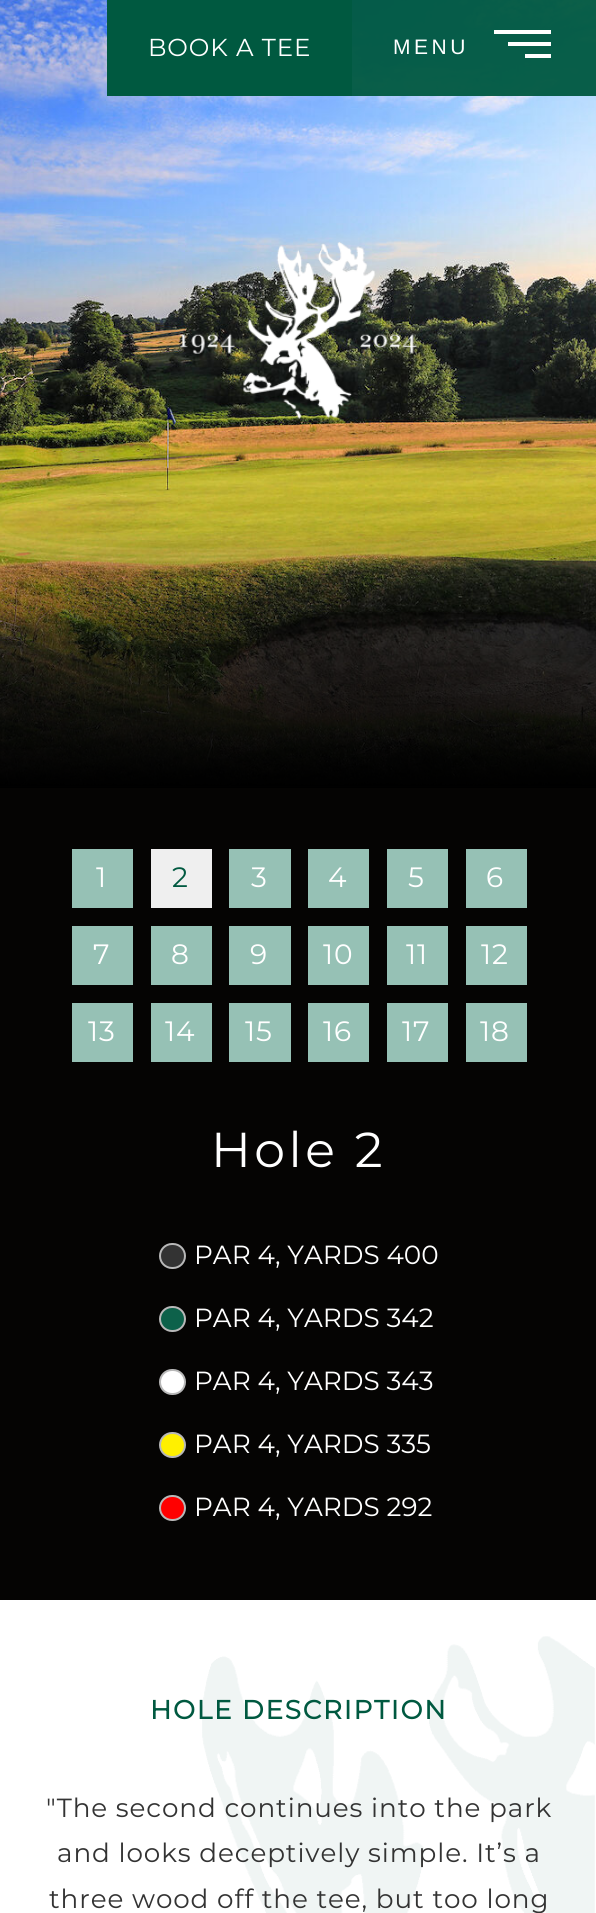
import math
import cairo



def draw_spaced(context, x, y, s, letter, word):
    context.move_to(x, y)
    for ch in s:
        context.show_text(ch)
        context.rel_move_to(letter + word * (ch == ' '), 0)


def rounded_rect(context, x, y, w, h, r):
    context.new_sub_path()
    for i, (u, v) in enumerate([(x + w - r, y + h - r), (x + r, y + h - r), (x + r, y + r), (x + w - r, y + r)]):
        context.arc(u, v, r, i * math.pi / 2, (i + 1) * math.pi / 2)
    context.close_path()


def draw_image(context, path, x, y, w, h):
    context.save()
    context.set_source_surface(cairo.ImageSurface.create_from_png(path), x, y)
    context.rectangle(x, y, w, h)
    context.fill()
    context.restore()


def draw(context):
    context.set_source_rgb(1, 1, 1)
    context.paint()
    draw_image(context, "images/1.png", 0, 0, 596, 786)
    context.set_source_rgb(0, 89 / 255, 64 / 255)
    context.rectangle(107, 0, 245, 96)
    context.fill()
    context.set_source_rgba(0, 89 / 255, 64 / 255, 0.95)
    context.rectangle(352, 0, 244, 96)
    context.fill()
    context.set_source_rgb(1, 1, 1)
    context.rectangle(494, 30, 57, 4)
    context.fill()
    context.rectangle(508, 42, 43, 4)
    context.fill()
    context.rectangle(525, 54, 26, 4)
    context.fill()
    gradient = cairo.LinearGradient(298, 525, 298, 788)
    gradient.add_color_stop_rgba(0, 0, 0, 0, 0)
    gradient.add_color_stop_rgba(1, 0, 0, 0, 1)
    context.set_source(gradient)
    context.rectangle(0, 531, 596, 257)
    context.fill()
    draw_image(context, "images/2.png", 179, 242, 238, 177)
    context.set_source_rgb(5 / 255, 4 / 255, 3 / 255)
    context.rectangle(0, 788, 596, 812)
    context.fill()
    context.set_source_rgb(150 / 255, 193 / 255, 181 / 255)
    context.rectangle(72, 849, 61, 59)
    context.fill()
    context.set_source_rgb(239 / 255, 239 / 255, 239 / 255)
    context.rectangle(151, 849, 61, 59)
    context.fill()
    context.set_source_rgb(150 / 255, 193 / 255, 181 / 255)
    context.rectangle(229, 849, 62, 59)
    context.fill()
    context.rectangle(308, 849, 61, 59)
    context.fill()
    context.rectangle(387, 849, 61, 59)
    context.fill()
    context.rectangle(466, 849, 61, 59)
    context.fill()
    context.rectangle(72, 926, 61, 59)
    context.fill()
    context.rectangle(151, 926, 61, 59)
    context.fill()
    context.rectangle(229, 926, 62, 59)
    context.fill()
    context.rectangle(308, 926, 61, 59)
    context.fill()
    context.rectangle(387, 926, 61, 59)
    context.fill()
    context.rectangle(466, 926, 61, 59)
    context.fill()
    context.rectangle(72, 1003, 61, 59)
    context.fill()
    context.rectangle(151, 1003, 61, 59)
    context.fill()
    context.rectangle(229, 1003, 62, 59)
    context.fill()
    context.rectangle(308, 1003, 61, 59)
    context.fill()
    context.rectangle(387, 1003, 61, 59)
    context.fill()
    context.rectangle(466, 1003, 61, 59)
    context.fill()
    context.set_source_rgb(51 / 255, 51 / 255, 51 / 255)
    rounded_rect(context, 160, 1244, 25, 24, 12)
    context.fill_preserve()
    context.set_source_rgb(184 / 255, 184 / 255, 184 / 255)
    context.stroke()
    context.set_source_rgb(13 / 255, 97 / 255, 74 / 255)
    rounded_rect(context, 160, 1307, 25, 24, 12)
    context.fill_preserve()
    context.set_source_rgb(184 / 255, 184 / 255, 184 / 255)
    context.stroke()
    context.set_source_rgb(1, 1, 1)
    rounded_rect(context, 160, 1370, 25, 24, 12)
    context.fill_preserve()
    context.set_source_rgb(184 / 255, 184 / 255, 184 / 255)
    context.stroke()
    context.set_source_rgb(1, 240 / 255, 0)
    rounded_rect(context, 160, 1433, 25, 24, 12)
    context.fill_preserve()
    context.set_source_rgb(184 / 255, 184 / 255, 184 / 255)
    context.stroke()
    context.set_source_rgb(1, 0, 0)
    rounded_rect(context, 160, 1496, 25, 24, 12)
    context.fill_preserve()
    context.set_source_rgb(184 / 255, 184 / 255, 184 / 255)
    context.stroke()
    draw_image(context, "images/3.png", 202, 1636, 393, 277)
    context.select_font_face("Montserrat Thin")
    context.set_font_size(24.5)
    context.set_source_rgb(1, 1, 1)
    draw_spaced(context, 148, 56, "BOOK A TEE", 0.9, 0)
    context.select_font_face("Liberation Sans")
    context.set_font_size(21)
    draw_spaced(context, 393, 54, "MENU", 3.5, 0)
    context.select_font_face("Montserrat Thin")
    context.set_font_size(28)
    draw_spaced(context, 96, 887, "1", 0.9, 0)
    context.set_source_rgb(0, 89 / 255, 64 / 255)
    draw_spaced(context, 172, 887, "2", 0.9, 0)
    context.set_source_rgb(1, 1, 1)
    draw_spaced(context, 251, 887, "3", 0.9, 0)
    draw_spaced(context, 328, 887, "4", 0.9, 0)
    draw_spaced(context, 408, 887, "5", 0.9, 0)
    draw_spaced(context, 486, 887, "6", 0.9, 0)
    draw_spaced(context, 93, 964, "7", 0.9, 0)
    draw_spaced(context, 171, 964, "8", 0.9, 0)
    draw_spaced(context, 250, 964, "9", 0.9, 0)
    draw_spaced(context, 323, 964, "10", 0.9, 0)
    draw_spaced(context, 406, 964, "11", 0.9, 0)
    draw_spaced(context, 481, 964, "12", 0.9, 0)
    draw_spaced(context, 88, 1041, "13", 0.9, 0)
    draw_spaced(context, 165, 1041, "14", 0.9, 0)
    draw_spaced(context, 245, 1041, "15", 0.9, 0)
    draw_spaced(context, 323, 1041, "16", 0.9, 0)
    draw_spaced(context, 402, 1041, "17", 0.9, 0)
    draw_spaced(context, 480, 1041, "18", 0.9, 0)
    context.set_font_size(49)
    draw_spaced(context, 211, 1167, "Hole 2", 3.5, 0)
    context.set_font_size(26.25)
    context.move_to(194, 1264)
    context.show_text("PAR 4, YARDS 400")
    context.move_to(194, 1327)
    context.show_text("PAR 4, YARDS 342")
    context.move_to(194, 1390)
    context.show_text("PAR 4, YARDS 343")
    context.move_to(194, 1453)
    context.show_text("PAR 4, YARDS 335")
    context.move_to(194, 1516)
    context.show_text("PAR 4, YARDS 292")
    context.select_font_face("Montserrat", cairo.FontSlant.NORMAL, cairo.FontWeight.BOLD)
    context.set_source_rgb(0, 89 / 255, 64 / 255)
    draw_spaced(context, 150, 1719, "HOLE DESCRIPTION", 1.75, 0)
    context.select_font_face("Montserrat Thin")
    context.set_source_rgb(51 / 255, 51 / 255, 51 / 255)
    draw_spaced(context, 46, 1817, "\"The second continues into the park", 0.9, 0)
    draw_spaced(context, 57, 1862, "and looks deceptively simple. It’s a", 0.9, 0)
    draw_spaced(context, 49, 1908, "three wood off the tee, but too long", 0.9, 0)


surface = cairo.ImageSurface(cairo.Format.RGB24, 596, 1913)
context = cairo.Context(surface)
options = cairo.FontOptions()
options.set_hint_metrics(cairo.HintMetrics.OFF)
options.set_hint_style(cairo.HintStyle.NONE)
context.set_font_options(options)
context.set_miter_limit(4)
draw(context)
surface.write_to_png("out.png")
